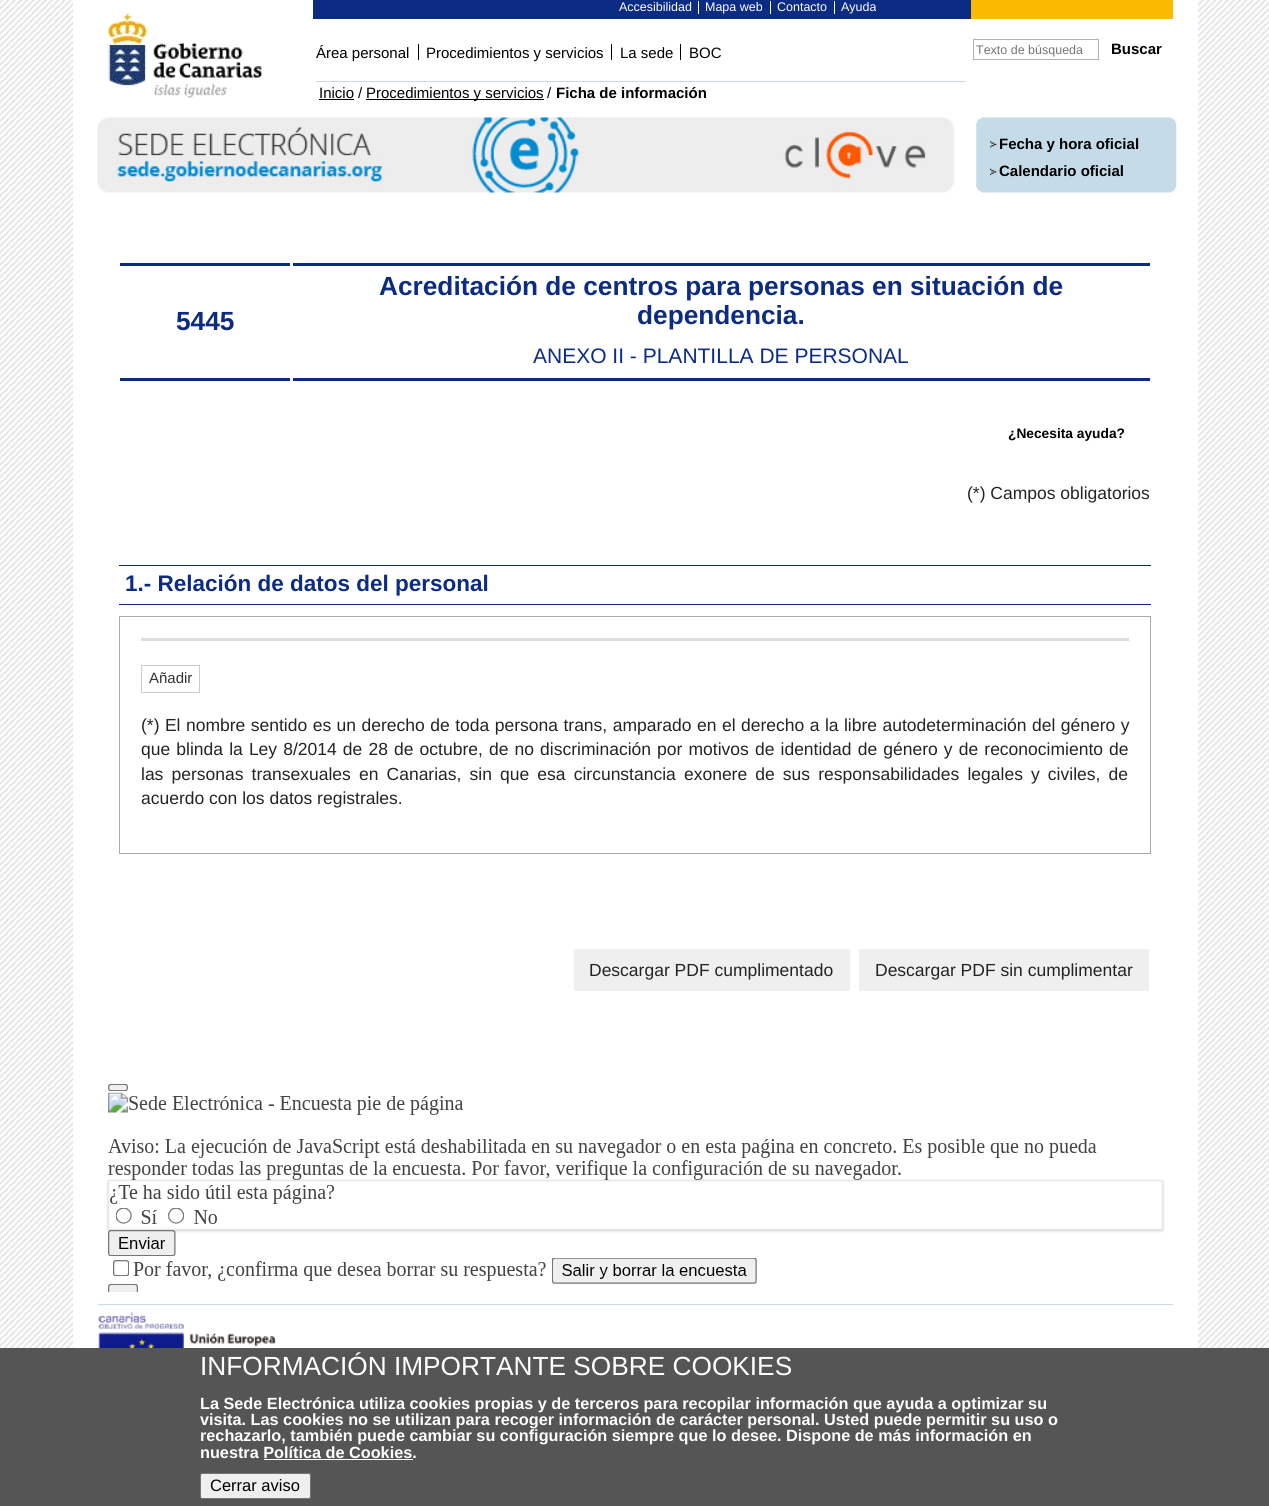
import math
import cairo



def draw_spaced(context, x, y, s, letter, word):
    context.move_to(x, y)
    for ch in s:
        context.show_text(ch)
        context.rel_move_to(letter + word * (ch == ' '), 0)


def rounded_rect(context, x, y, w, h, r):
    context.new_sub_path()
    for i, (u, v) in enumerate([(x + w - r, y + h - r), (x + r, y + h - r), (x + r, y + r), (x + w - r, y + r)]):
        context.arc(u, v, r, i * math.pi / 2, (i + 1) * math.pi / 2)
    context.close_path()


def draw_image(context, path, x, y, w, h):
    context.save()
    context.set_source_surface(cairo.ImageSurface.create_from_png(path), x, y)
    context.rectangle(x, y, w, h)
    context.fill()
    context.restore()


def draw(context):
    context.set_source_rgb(1, 1, 1)
    context.paint()
    draw_image(context, "images/1.png", 0, 0, 1269, 1348)
    context.set_source_rgb(1, 1, 1)
    context.rectangle(73, 3, 1, 1345)
    context.fill()
    draw_image(context, "images/2.png", 108, 13, 154, 85)
    context.set_source_rgb(251 / 255, 186 / 255, 0)
    context.rectangle(971, 0, 202, 19)
    context.fill()
    context.set_source_rgb(12 / 255, 44 / 255, 132 / 255)
    context.rectangle(313, 0, 658, 19)
    context.fill()
    context.set_source_rgb(1, 1, 1)
    context.rectangle(698, 1, 1, 13)
    context.fill()
    context.rectangle(770, 1, 1, 13)
    context.fill()
    context.rectangle(834, 1, 1, 13)
    context.fill()
    context.set_source_rgb(0, 0, 0)
    context.rectangle(418, 44, 1, 16)
    context.fill()
    context.rectangle(611, 44, 1, 16)
    context.fill()
    context.rectangle(680, 44, 1, 16)
    context.fill()
    context.set_source_rgb(197 / 255, 220 / 255, 232 / 255)
    context.rectangle(316, 81, 650, 1)
    context.fill()
    context.set_source_rgb(0, 0, 0)
    context.rectangle(319, 99, 35, 1)
    context.fill()
    context.rectangle(366, 99, 178, 1)
    context.fill()
    context.rectangle(973.5, 39.5, 125, 20)
    context.set_source_rgb(176 / 255, 177 / 255, 178 / 255)
    context.set_line_width(1)
    context.stroke()
    draw_image(context, "images/3.png", 97, 117, 857, 76)
    draw_image(context, "images/4.png", 976, 117, 201, 76)
    draw_image(context, "images/5.png", 990, 141, 7, 7)
    draw_image(context, "images/6.png", 990, 168, 7, 7)
    context.set_source_rgb(12 / 255, 44 / 255, 132 / 255)
    context.rectangle(120, 263, 170, 3)
    context.fill()
    context.rectangle(120, 378, 170, 3)
    context.fill()
    context.rectangle(293, 263, 857, 3)
    context.fill()
    context.rectangle(293, 378, 857, 3)
    context.fill()
    context.rectangle(119, 565, 1032, 1)
    context.fill()
    context.rectangle(119, 604, 1032, 1)
    context.fill()
    context.rectangle(119.5, 616.5, 1031, 237)
    context.set_source_rgb(170 / 255, 170 / 255, 170 / 255)
    context.stroke()
    context.set_source_rgb(221 / 255, 221 / 255, 221 / 255)
    context.rectangle(141, 638, 988, 3)
    context.fill()
    context.rectangle(141.5, 665.5, 58, 27)
    context.set_source_rgb(204 / 255, 204 / 255, 204 / 255)
    context.stroke()
    context.set_source_rgb(239 / 255, 239 / 255, 239 / 255)
    context.rectangle(574, 949, 276, 42)
    context.fill()
    context.rectangle(859, 949, 290, 42)
    context.fill()
    draw_image(context, "images/7.png", 106, 1084, 1059, 208)
    context.set_source_rgb(197 / 255, 220 / 255, 232 / 255)
    context.rectangle(98, 1304, 1075, 1)
    context.fill()
    draw_image(context, "images/8.png", 98, 1312, 181, 36)
    context.set_source_rgb(85 / 255, 85 / 255, 85 / 255)
    context.rectangle(0, 1348, 1269, 158)
    context.fill()
    context.set_source_rgb(1, 1, 1)
    context.rectangle(264, 1459, 149, 1)
    context.fill()
    context.set_source_rgb(239 / 255, 239 / 255, 239 / 255)
    rounded_rect(context, 200.5, 1473.5, 110, 25, 2)
    context.fill_preserve()
    context.set_source_rgb(118 / 255, 118 / 255, 118 / 255)
    context.stroke()
    context.select_font_face("Liberation Sans")
    context.set_font_size(12.5)
    context.set_source_rgb(1, 1, 1)
    context.move_to(619, 11)
    context.show_text("Accesibilidad")
    context.move_to(705, 11)
    context.show_text("Mapa web")
    context.move_to(777, 11)
    context.show_text("Contacto")
    context.move_to(841, 11)
    context.show_text("Ayuda")
    context.set_font_size(15)
    context.set_source_rgb(0, 0, 0)
    context.move_to(316, 58)
    context.show_text("Área personal")
    context.move_to(426, 58)
    context.show_text("Procedimientos y servicios")
    context.move_to(620, 58)
    context.show_text("La sede")
    context.move_to(689, 58)
    context.show_text("BOC")
    context.move_to(319, 98)
    context.show_text("Inicio")
    context.move_to(358, 98)
    context.show_text("/")
    context.move_to(366, 98)
    context.show_text("Procedimientos y servicios")
    context.move_to(547, 98)
    context.show_text("/")
    context.select_font_face("Liberation Sans", cairo.FontSlant.NORMAL, cairo.FontWeight.BOLD)
    context.move_to(556, 98)
    context.show_text("Ficha de información")
    context.select_font_face("Liberation Sans")
    context.set_font_size(12.5)
    context.set_source_rgb(117 / 255, 117 / 255, 117 / 255)
    context.move_to(976, 54)
    context.show_text("Texto de búsqueda")
    context.select_font_face("Liberation Sans", cairo.FontSlant.NORMAL, cairo.FontWeight.BOLD)
    context.set_font_size(15)
    context.set_source_rgb(0, 0, 0)
    context.move_to(1111, 54)
    context.show_text("Buscar")
    context.move_to(999, 149)
    context.show_text("Fecha y hora oficial")
    context.move_to(999, 176)
    context.show_text("Calendario oficial")
    context.set_font_size(26.25)
    context.set_source_rgb(12 / 255, 44 / 255, 132 / 255)
    context.move_to(176, 330)
    context.show_text("5445")
    context.move_to(379, 295)
    context.show_text("Acreditación de centros para personas en situación de")
    context.move_to(637, 324)
    context.show_text("dependencia.")
    context.select_font_face("Liberation Sans")
    context.set_font_size(21)
    context.move_to(533, 363)
    context.show_text("ANEXO II - PLANTILLA DE PERSONAL")
    context.select_font_face("Liberation Sans", cairo.FontSlant.NORMAL, cairo.FontWeight.BOLD)
    context.set_font_size(13.75)
    context.set_source_rgb(0, 0, 0)
    context.move_to(1008, 438)
    context.show_text("¿Necesita ayuda?")
    context.select_font_face("Liberation Sans")
    context.set_font_size(17.5)
    context.set_source_rgb(36 / 255, 36 / 255, 36 / 255)
    context.move_to(967, 499)
    context.show_text("(*) Campos obligatorios")
    context.select_font_face("Liberation Sans", cairo.FontSlant.NORMAL, cairo.FontWeight.BOLD)
    context.set_font_size(22.5)
    context.set_source_rgb(12 / 255, 44 / 255, 132 / 255)
    context.move_to(125, 591)
    context.show_text("1.- Relación de datos del personal")
    context.select_font_face("Liberation Sans")
    context.set_font_size(15)
    context.set_source_rgb(51 / 255, 51 / 255, 51 / 255)
    context.move_to(149, 683)
    context.show_text("Añadir")
    context.set_font_size(17.5)
    context.set_source_rgb(36 / 255, 36 / 255, 36 / 255)
    draw_spaced(context, 141, 731, "(*) El nombre sentido es un derecho de toda persona trans, amparado en el derecho a la libre autodeterminación del género y", 0, 0.6)
    draw_spaced(context, 141, 755, "que blinda la Ley 8/2014 de 28 de octubre, de no discriminación por motivos de identidad de género y de reconocimiento de", 0, 1.25)
    draw_spaced(context, 141, 780, "las personas transexuales en Canarias, sin que esa circunstancia exonere de sus responsabilidades legales y civiles, de", 0, 3.25)
    context.move_to(141, 804)
    context.show_text("acuerdo con los datos registrales.")
    context.move_to(589, 976)
    context.show_text("Descargar PDF cumplimentado")
    context.move_to(875, 976)
    context.show_text("Descargar PDF sin cumplimentar")
    context.set_font_size(26.25)
    context.set_source_rgb(1, 1, 1)
    context.move_to(200, 1375)
    context.show_text("INFORMACIÓN IMPORTANTE SOBRE COOKIES")
    context.select_font_face("Liberation Sans", cairo.FontSlant.NORMAL, cairo.FontWeight.BOLD)
    context.set_font_size(16.25)
    context.move_to(200, 1409)
    context.show_text("La Sede Electrónica utiliza cookies propias y de terceros para recopilar información que ayuda a optimizar su")
    context.move_to(200, 1425)
    context.show_text("visita. Las cookies no se utilizan para recoger información de carácter personal. Usted puede permitir su uso o")
    context.move_to(200, 1441)
    context.show_text("rechazarlo, también puede cambiar su configuración siempre que lo desee. Dispone de más información en")
    context.move_to(200, 1458)
    context.show_text("nuestra Política de Cookies.")
    context.select_font_face("Liberation Sans")
    context.set_font_size(16.5)
    context.set_source_rgb(0, 0, 0)
    context.move_to(210, 1491)
    context.show_text("Cerrar aviso")


surface = cairo.ImageSurface(cairo.Format.RGB24, 1269, 1506)
context = cairo.Context(surface)
options = cairo.FontOptions()
options.set_hint_metrics(cairo.HintMetrics.OFF)
options.set_hint_style(cairo.HintStyle.NONE)
context.set_font_options(options)
context.set_miter_limit(4)
draw(context)
surface.write_to_png("out.png")
